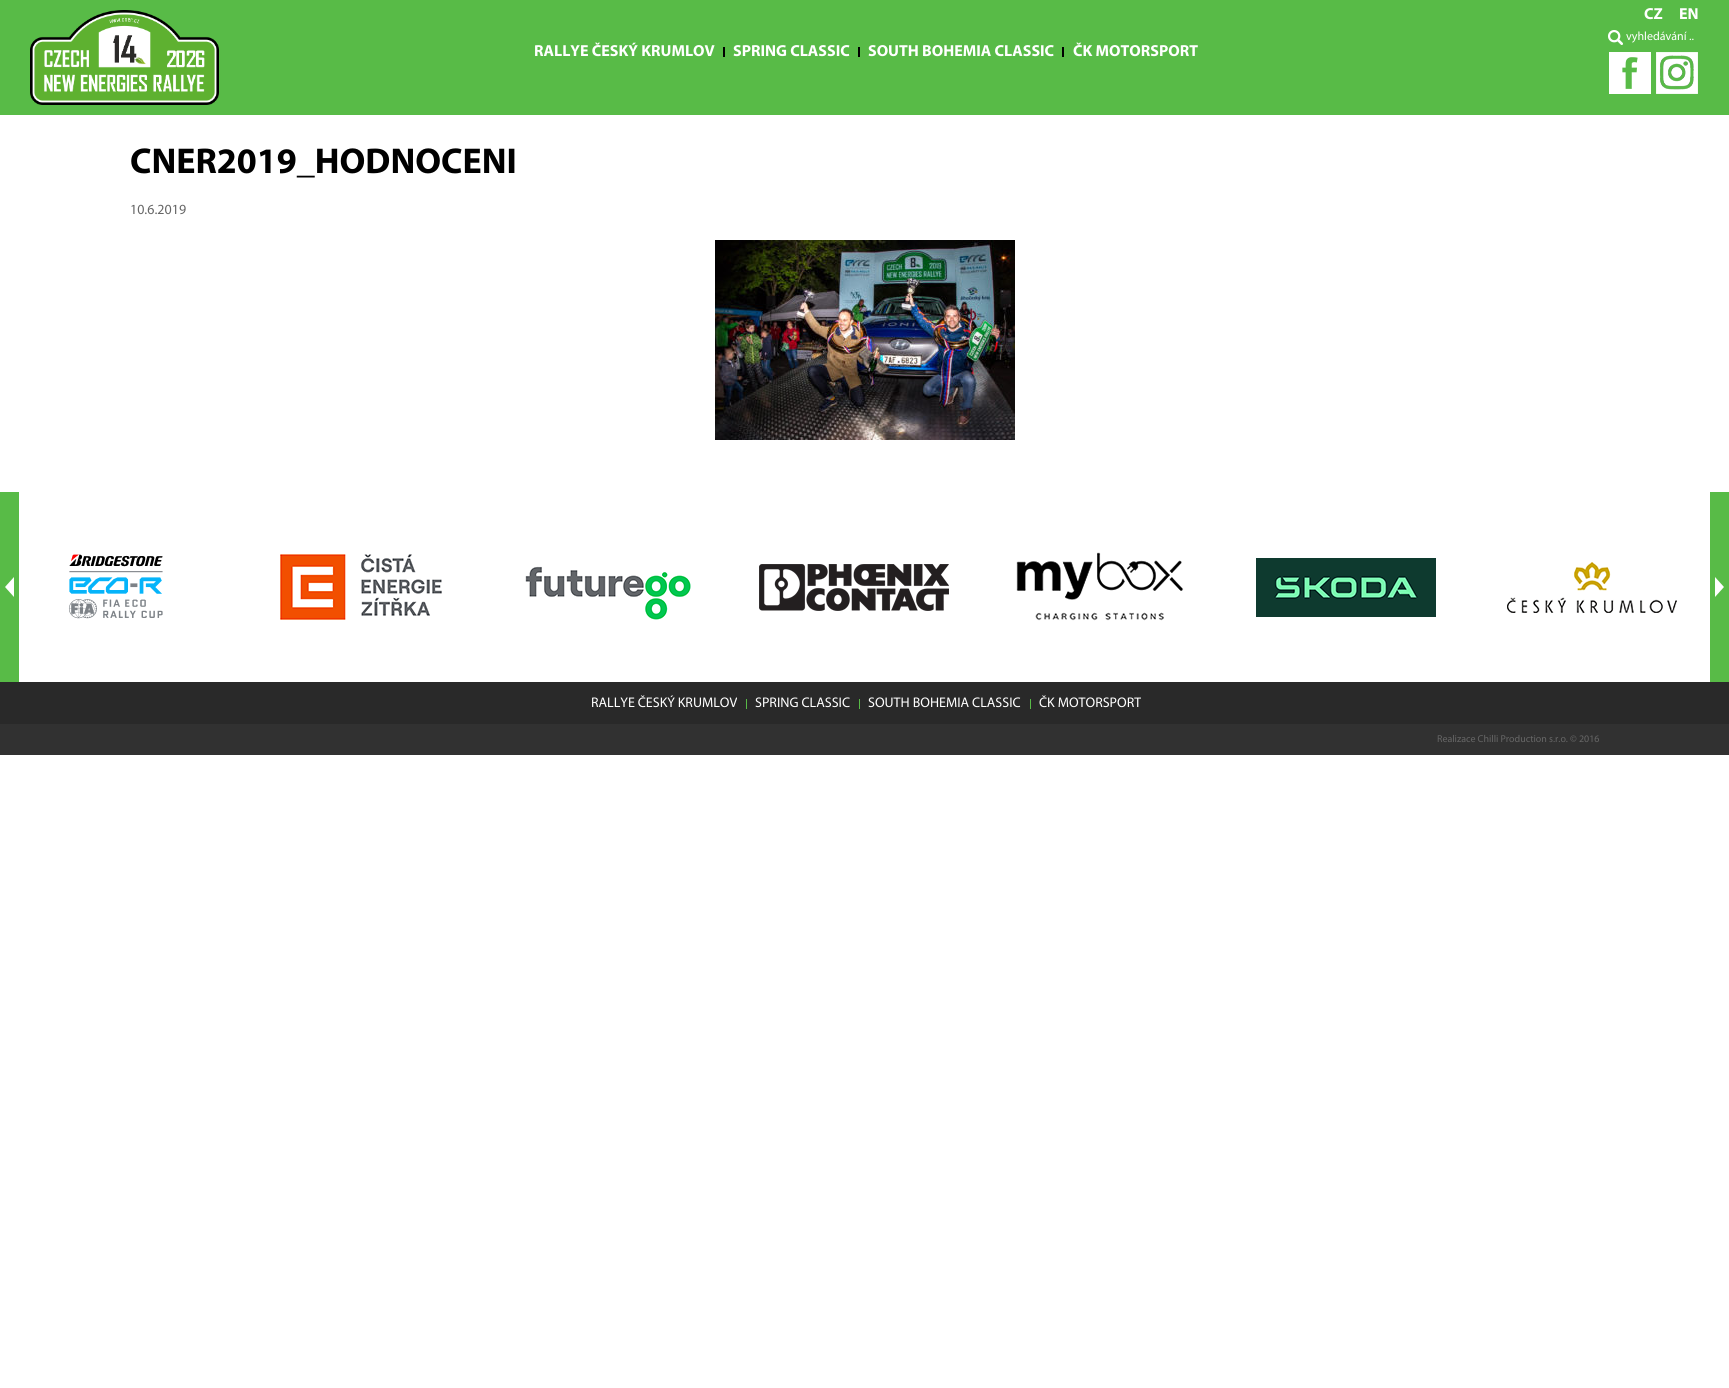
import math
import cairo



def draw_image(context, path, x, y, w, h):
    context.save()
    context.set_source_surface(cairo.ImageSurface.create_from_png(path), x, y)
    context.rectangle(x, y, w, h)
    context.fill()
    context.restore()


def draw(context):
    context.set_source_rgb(1, 1, 1)
    context.paint()
    context.set_source_rgb(88 / 255, 187 / 255, 71 / 255)
    context.rectangle(0, 0, 1729, 115)
    context.fill()
    draw_image(context, "images/1.png", 30, 10, 189, 95)
    context.set_source_rgb(0, 0, 0)
    context.rectangle(723, 47, 2, 10)
    context.fill()
    context.rectangle(858, 47, 2, 10)
    context.fill()
    context.rectangle(1062, 47, 2, 10)
    context.fill()
    draw_image(context, "images/2.png", 1608, 30, 15, 15)
    draw_image(context, "images/3.png", 1609, 52, 42, 42)
    draw_image(context, "images/4.png", 1656, 52, 42, 42)
    draw_image(context, "images/5.png", 715, 240, 300, 200)
    context.set_source_rgb(88 / 255, 187 / 255, 71 / 255)
    context.rectangle(0, 492, 19, 190)
    context.fill()
    draw_image(context, "images/6.png", 5, 577, 9, 20)
    context.rectangle(1710, 492, 19, 190)
    context.fill()
    draw_image(context, "images/7.png", 1715, 577, 9, 20)
    draw_image(context, "images/8.png", 68, 554, 95, 65)
    draw_image(context, "images/9.png", 280, 554, 162, 66)
    draw_image(context, "images/10.png", 525, 566, 166, 54)
    draw_image(context, "images/11.png", 759, 564, 190, 47)
    draw_image(context, "images/12.png", 1016, 552, 168, 69)
    draw_image(context, "images/13.png", 1256, 558, 180, 59)
    draw_image(context, "images/14.png", 1507, 562, 170, 51)
    context.set_source_rgb(41 / 255, 41 / 255, 41 / 255)
    context.rectangle(0, 682, 1729, 42)
    context.fill()
    context.set_source_rgb(88 / 255, 187 / 255, 71 / 255)
    context.rectangle(746, 699, 1, 10)
    context.fill()
    context.rectangle(859, 699, 1, 10)
    context.fill()
    context.rectangle(1030, 699, 1, 10)
    context.fill()
    context.set_source_rgb(49 / 255, 49 / 255, 49 / 255)
    context.rectangle(0, 724, 1729, 31)
    context.fill()
    context.select_font_face("Myriad", cairo.FontSlant.NORMAL, cairo.FontWeight.BOLD)
    context.set_font_size(16)
    context.set_source_rgb(1, 1, 1)
    context.move_to(534, 56)
    context.show_text("RALLYE ČESKÝ KRUMLOV")
    context.move_to(733, 56)
    context.show_text("SPRING CLASSIC")
    context.move_to(868, 56)
    context.show_text("SOUTH BOHEMIA CLASSIC")
    context.move_to(1073, 56)
    context.show_text("ČK MOTORSPORT")
    context.move_to(1644, 19)
    context.show_text("CZ")
    context.move_to(1679, 19)
    context.show_text("EN")
    context.select_font_face("Myriad")
    context.set_font_size(12)
    context.move_to(1626, 40)
    context.show_text("vyhledávání ..")
    context.select_font_face("Myriad", cairo.FontSlant.NORMAL, cairo.FontWeight.BOLD)
    context.set_font_size(36)
    context.set_source_rgb(0, 0, 0)
    context.move_to(130, 173)
    context.show_text("CNER2019_HODNOCENI")
    context.select_font_face("Myriad")
    context.set_font_size(14)
    context.set_source_rgb(102 / 255, 102 / 255, 102 / 255)
    context.move_to(130, 214)
    context.show_text("10.6.2019")
    context.set_source_rgb(1, 1, 1)
    context.move_to(591, 707)
    context.show_text("RALLYE ČESKÝ KRUMLOV")
    context.move_to(755, 707)
    context.show_text("SPRING CLASSIC")
    context.move_to(868, 707)
    context.show_text("SOUTH BOHEMIA CLASSIC")
    context.move_to(1039, 707)
    context.show_text("ČK MOTORSPORT")
    context.set_font_size(10)
    context.set_source_rgb(102 / 255, 102 / 255, 102 / 255)
    context.move_to(1437, 742)
    context.show_text("Realizace Chilli Production s.r.o. © 2016")


surface = cairo.ImageSurface(cairo.Format.RGB24, 1729, 1388)
context = cairo.Context(surface)
options = cairo.FontOptions()
options.set_hint_metrics(cairo.HintMetrics.OFF)
options.set_hint_style(cairo.HintStyle.NONE)
context.set_font_options(options)
context.set_miter_limit(4)
draw(context)
surface.write_to_png("out.png")
